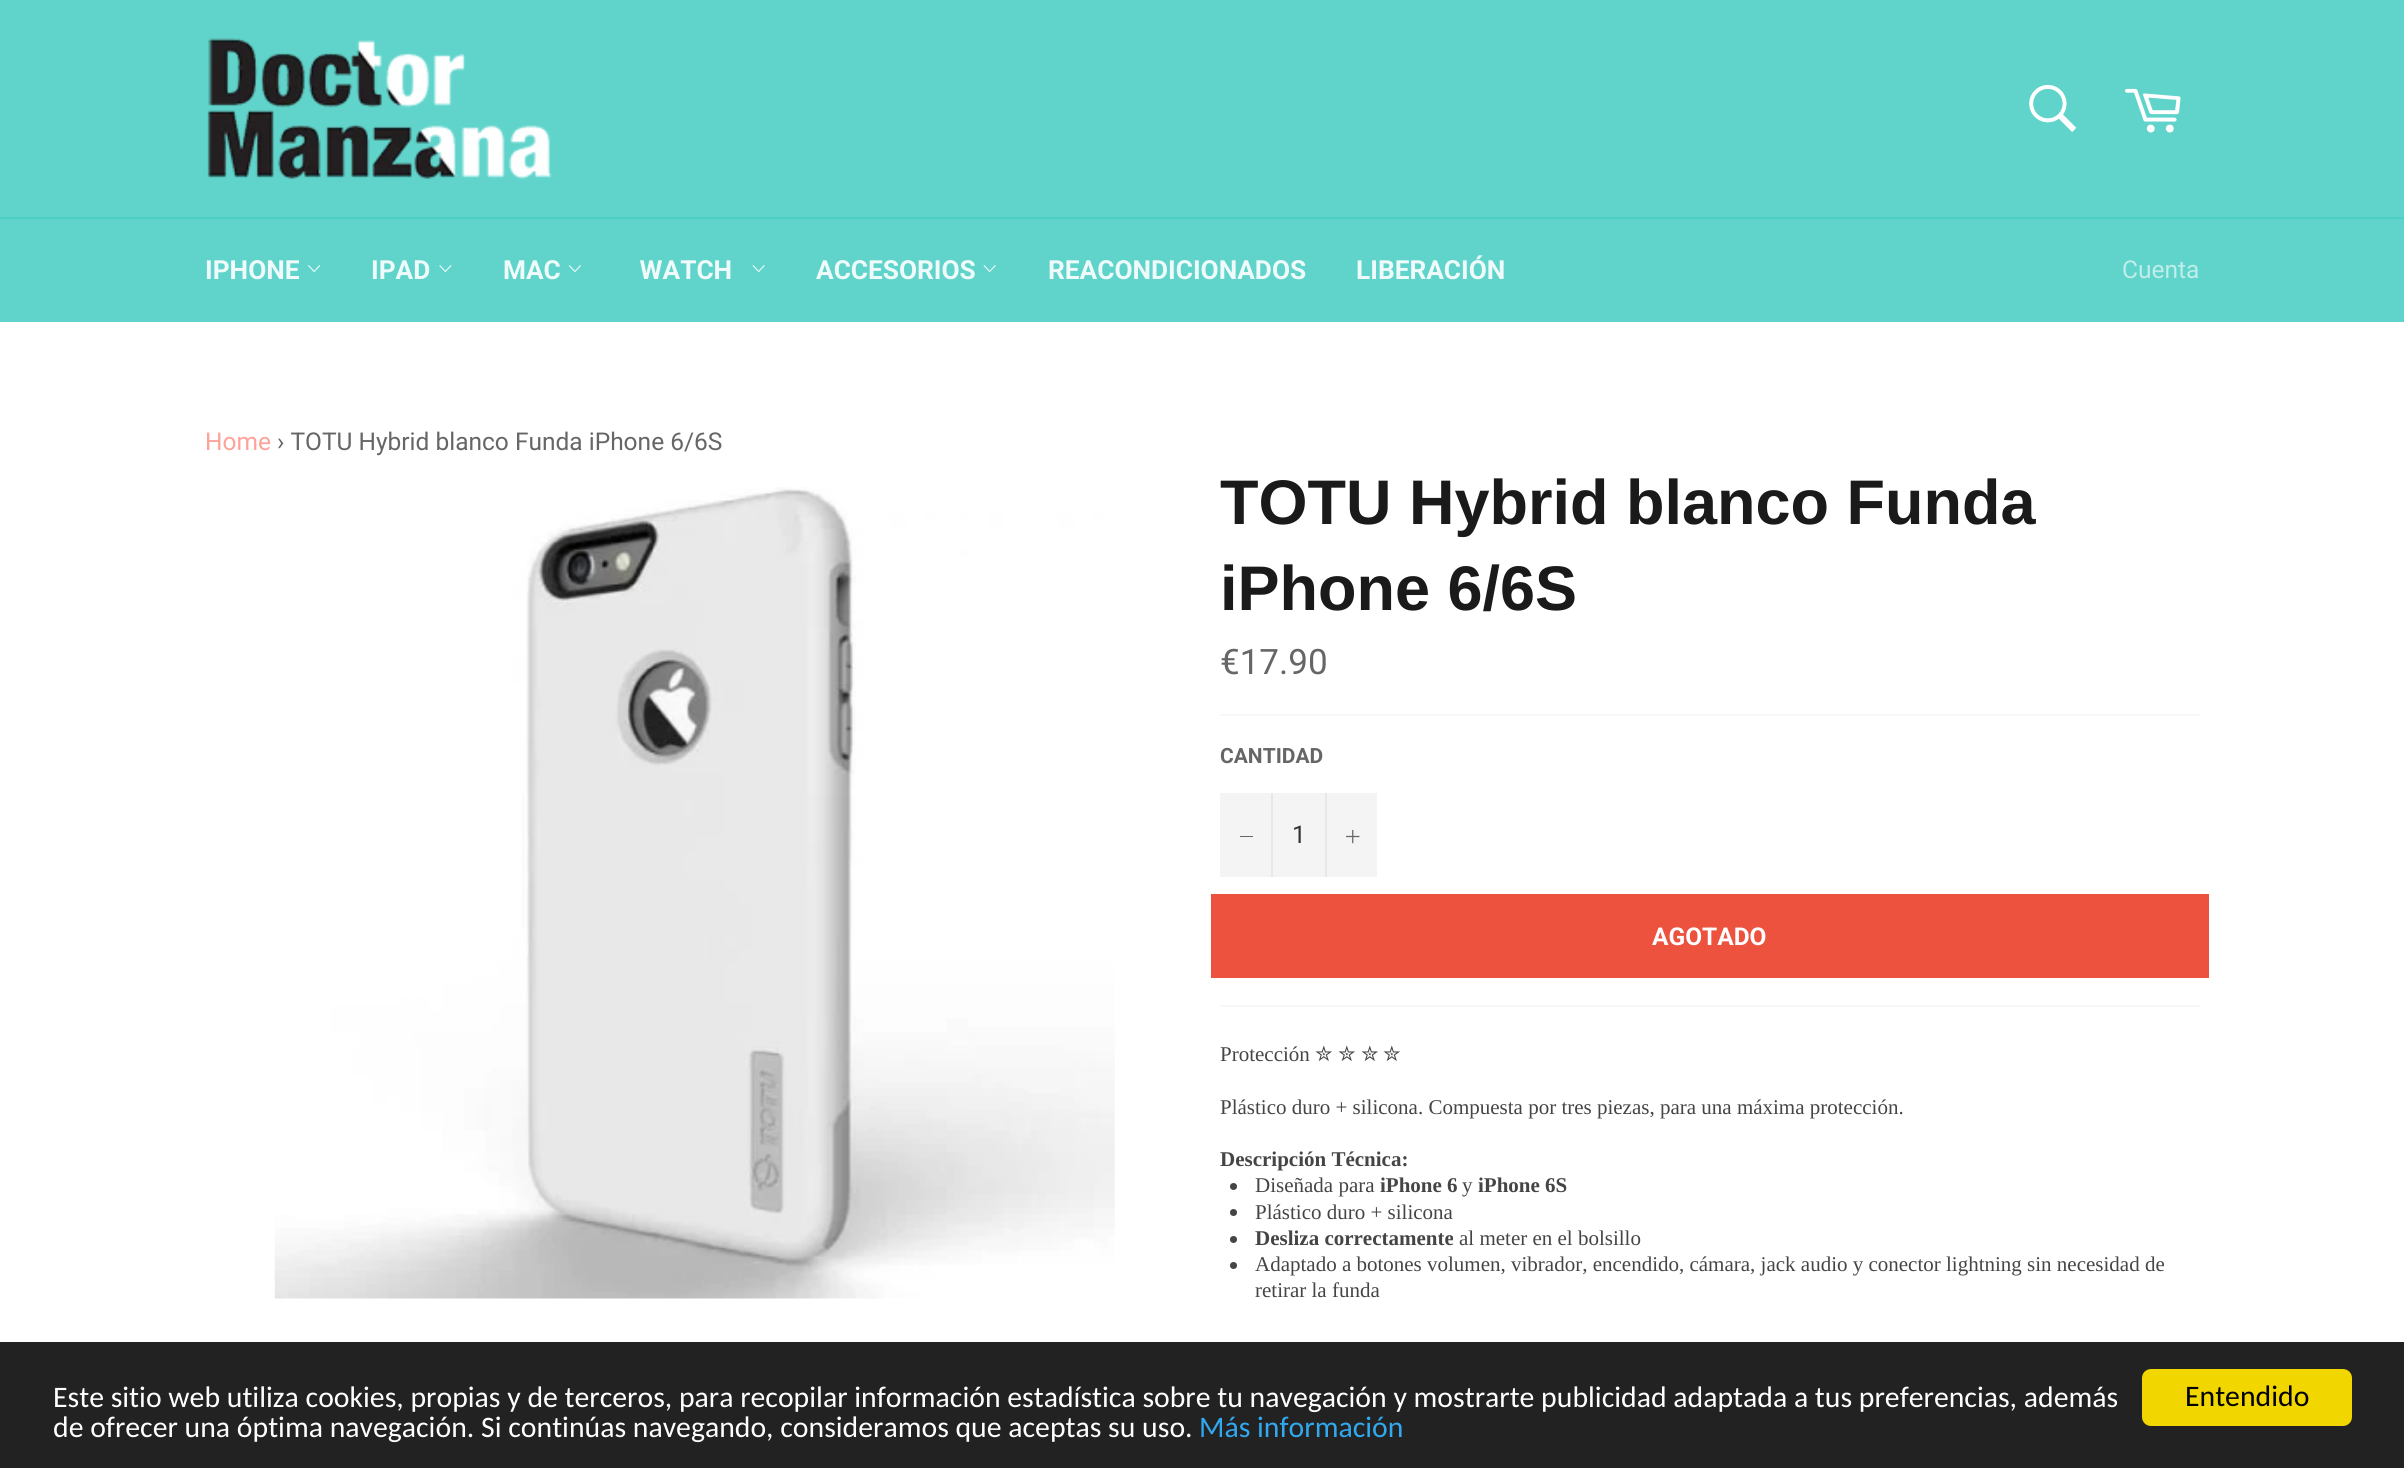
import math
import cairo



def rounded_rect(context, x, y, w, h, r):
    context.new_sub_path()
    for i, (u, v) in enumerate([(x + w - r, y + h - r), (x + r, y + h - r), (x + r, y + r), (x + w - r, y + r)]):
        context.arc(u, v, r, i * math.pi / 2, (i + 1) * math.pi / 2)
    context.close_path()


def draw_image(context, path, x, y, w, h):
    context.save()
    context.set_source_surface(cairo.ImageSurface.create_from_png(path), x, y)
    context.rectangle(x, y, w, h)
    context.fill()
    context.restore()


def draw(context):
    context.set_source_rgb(1, 1, 1)
    context.paint()
    context.set_source_rgb(96 / 255, 212 / 255, 203 / 255)
    context.rectangle(0, 0, 2404, 217)
    context.fill()
    draw_image(context, "images/1.png", 207, 38, 345, 141)
    draw_image(context, "images/2.png", 2029, 84, 48, 48)
    draw_image(context, "images/3.png", 2125, 88, 56, 45)
    context.rectangle(0, 219, 2404, 103)
    context.fill()
    context.set_source_rgb(76 / 255, 207 / 255, 196 / 255)
    context.rectangle(0, 217, 2404, 2)
    context.fill()
    draw_image(context, "images/4.png", 308, 265, 13, 8)
    draw_image(context, "images/5.png", 439, 265, 13, 8)
    draw_image(context, "images/6.png", 568, 265, 13, 8)
    draw_image(context, "images/7.png", 752, 265, 13, 8)
    draw_image(context, "images/7.png", 983, 265, 13, 8)
    draw_image(context, "images/8.png", 274, 487, 841, 812)
    context.set_source_rgb(247 / 255, 247 / 255, 247 / 255)
    context.rectangle(1220, 714, 980, 2)
    context.fill()
    context.set_source_rgb(244 / 255, 244 / 255, 244 / 255)
    context.rectangle(1220, 793, 157, 84)
    context.fill()
    context.set_source_rgb(231 / 255, 231 / 255, 231 / 255)
    context.rectangle(1271, 793, 2, 84)
    context.fill()
    context.set_source_rgb(102 / 255, 102 / 255, 102 / 255)
    context.rectangle(1240, 836, 13, 1)
    context.fill()
    context.set_source_rgb(231 / 255, 231 / 255, 231 / 255)
    context.rectangle(1325, 793, 2, 84)
    context.fill()
    draw_image(context, "images/9.png", 1346, 830, 14, 14)
    context.set_source_rgb(236 / 255, 82 / 255, 62 / 255)
    context.rectangle(1211, 894, 998, 84)
    context.fill()
    context.set_source_rgb(247 / 255, 247 / 255, 247 / 255)
    context.rectangle(1220, 1005, 980, 2)
    context.fill()
    context.set_source_rgb(69 / 255, 69 / 255, 69 / 255)
    context.arc(1233.5, 1186.5, 3.5, 0, 2 * math.pi)
    context.fill()
    context.arc(1233.5, 1212.5, 3.5, 0, 2 * math.pi)
    context.fill()
    context.arc(1233.5, 1239.5, 3.5, 0, 2 * math.pi)
    context.fill()
    context.arc(1233.5, 1265.5, 3.5, 0, 2 * math.pi)
    context.fill()
    context.set_source_rgb(34 / 255, 34 / 255, 34 / 255)
    context.rectangle(0, 1342, 2404, 126)
    context.fill()
    context.set_source_rgb(241 / 255, 214 / 255, 0)
    rounded_rect(context, 2142, 1369, 210, 57, 9)
    context.fill()
    context.select_font_face("Roboto", cairo.FontSlant.NORMAL, cairo.FontWeight.BOLD)
    context.set_font_size(26.25)
    context.set_source_rgb(239 / 255, 251 / 255, 250 / 255)
    context.move_to(205, 279)
    context.show_text("IPHONE")
    context.move_to(371, 279)
    context.show_text("IPAD")
    context.move_to(503, 279)
    context.show_text("MAC")
    context.move_to(633, 279)
    context.show_text(" WATCH")
    context.move_to(816, 279)
    context.show_text("ACCESORIOS")
    context.move_to(1048, 279)
    context.show_text("REACONDICIONADOS")
    context.move_to(1356, 279)
    context.show_text("LIBERACIÓN")
    context.select_font_face("Roboto")
    context.set_font_size(24.5)
    context.set_source_rgb(191 / 255, 238 / 255, 234 / 255)
    context.move_to(2122, 278)
    context.show_text("Cuenta")
    context.set_source_rgb(1, 162 / 255, 153 / 255)
    context.move_to(205, 450)
    context.show_text("Home")
    context.set_source_rgb(102 / 255, 102 / 255, 102 / 255)
    context.move_to(277, 450)
    context.show_text("› TOTU Hybrid blanco Funda iPhone 6/6S")
    context.select_font_face("Liberation Sans", cairo.FontSlant.NORMAL, cairo.FontWeight.BOLD)
    context.set_font_size(63)
    context.set_source_rgb(26 / 255, 26 / 255, 26 / 255)
    context.move_to(1220, 524)
    context.show_text("TOTU Hybrid blanco Funda")
    context.move_to(1220, 610)
    context.show_text("iPhone 6/6S")
    context.select_font_face("Roboto")
    context.set_font_size(35)
    context.set_source_rgb(102 / 255, 102 / 255, 102 / 255)
    context.move_to(1220, 674)
    context.show_text("€17.90")
    context.select_font_face("Roboto", cairo.FontSlant.NORMAL, cairo.FontWeight.BOLD)
    context.set_font_size(21)
    context.move_to(1220, 763)
    context.show_text("CANTIDAD")
    context.select_font_face("Roboto")
    context.set_font_size(24.5)
    context.set_source_rgb(51 / 255, 51 / 255, 51 / 255)
    context.move_to(1292, 843)
    context.show_text("1")
    context.select_font_face("Roboto", cairo.FontSlant.NORMAL, cairo.FontWeight.BOLD)
    context.set_source_rgb(1, 1, 1)
    context.move_to(1652, 945)
    context.show_text("AGOTADO")
    context.select_font_face("Liberation Serif")
    context.set_font_size(21)
    context.set_source_rgb(69 / 255, 69 / 255, 69 / 255)
    context.move_to(1220, 1061)
    context.show_text("Protección")
    context.select_font_face("DejaVu Sans")
    context.move_to(1315, 1061)
    context.show_text("✮")
    context.move_to(1338, 1061)
    context.show_text("✮")
    context.move_to(1361, 1061)
    context.show_text("✮")
    context.move_to(1383, 1061)
    context.show_text("✮")
    context.select_font_face("Liberation Serif")
    context.move_to(1220, 1114)
    context.show_text("Plástico duro + silicona. Compuesta por tres piezas, para una máxima protección.")
    context.select_font_face("Liberation Serif", cairo.FontSlant.NORMAL, cairo.FontWeight.BOLD)
    context.move_to(1220, 1166)
    context.show_text("Descripción Técnica:")
    context.select_font_face("Liberation Serif")
    context.move_to(1255, 1192)
    context.show_text("Diseñada para")
    context.select_font_face("Liberation Serif", cairo.FontSlant.NORMAL, cairo.FontWeight.BOLD)
    context.move_to(1380, 1192)
    context.show_text("iPhone 6")
    context.select_font_face("Liberation Serif")
    context.move_to(1462, 1192)
    context.show_text("y")
    context.select_font_face("Liberation Serif", cairo.FontSlant.NORMAL, cairo.FontWeight.BOLD)
    context.move_to(1478, 1192)
    context.show_text("iPhone 6S")
    context.select_font_face("Liberation Serif")
    context.move_to(1255, 1219)
    context.show_text("Plástico duro + silicona")
    context.select_font_face("Liberation Serif", cairo.FontSlant.NORMAL, cairo.FontWeight.BOLD)
    context.move_to(1255, 1245)
    context.show_text("Desliza correctamente")
    context.select_font_face("Liberation Serif")
    context.move_to(1459, 1245)
    context.show_text("al meter en el bolsillo")
    context.move_to(1255, 1271)
    context.show_text("Adaptado a botones volumen, vibrador, encendido, cámara, jack audio y conector lightning sin necesidad de")
    context.move_to(1255, 1297)
    context.show_text("retirar la funda")
    context.select_font_face("Carlito")
    context.set_font_size(29.75)
    context.set_source_rgb(1, 1, 1)
    context.move_to(53, 1407)
    context.show_text("Este sitio web utiliza cookies, propias y de terceros, para recopilar información estadística sobre tu navegación y mostrarte publicidad adaptada a tus preferencias, además")
    context.move_to(53, 1437)
    context.show_text("de ofrecer una óptima navegación. Si continúas navegando, consideramos que aceptas su uso.")
    context.set_source_rgb(49 / 255, 168 / 255, 240 / 255)
    context.move_to(1199, 1437)
    context.show_text("Más información")
    context.set_source_rgb(0, 0, 0)
    context.move_to(2185, 1406)
    context.show_text("Entendido")


surface = cairo.ImageSurface(cairo.Format.RGB24, 2404, 1468)
context = cairo.Context(surface)
options = cairo.FontOptions()
options.set_hint_metrics(cairo.HintMetrics.OFF)
options.set_hint_style(cairo.HintStyle.NONE)
context.set_font_options(options)
context.set_miter_limit(4)
draw(context)
surface.write_to_png("out.png")
